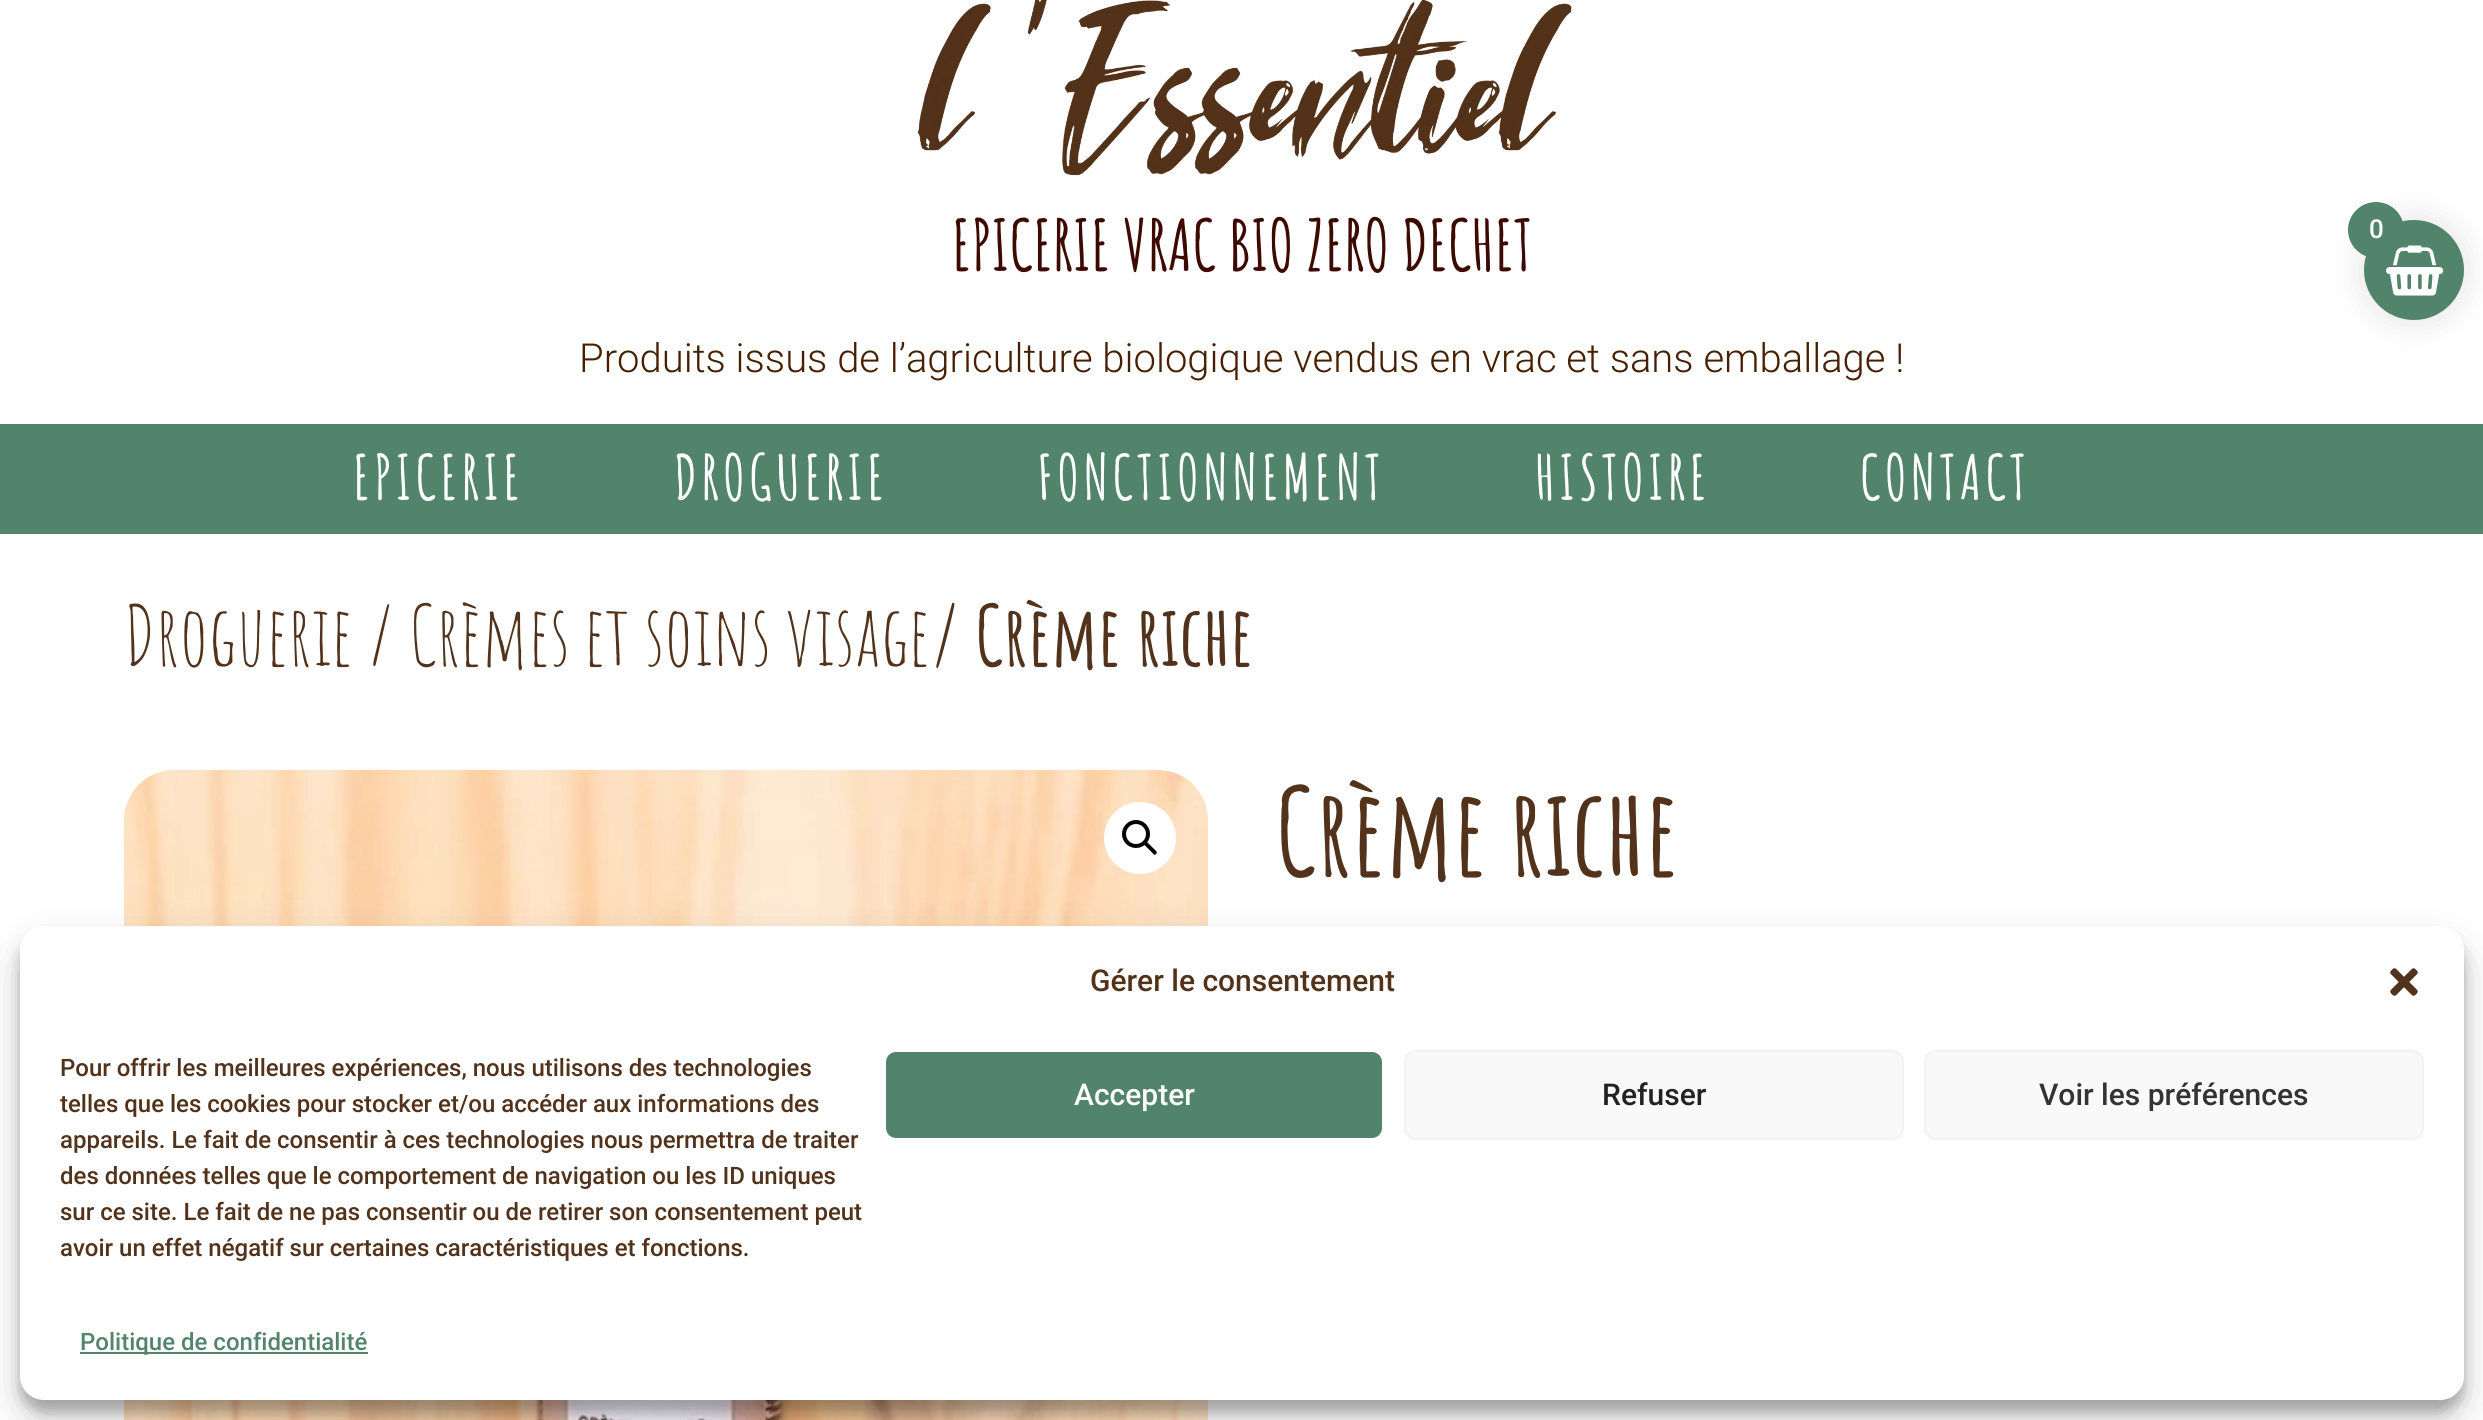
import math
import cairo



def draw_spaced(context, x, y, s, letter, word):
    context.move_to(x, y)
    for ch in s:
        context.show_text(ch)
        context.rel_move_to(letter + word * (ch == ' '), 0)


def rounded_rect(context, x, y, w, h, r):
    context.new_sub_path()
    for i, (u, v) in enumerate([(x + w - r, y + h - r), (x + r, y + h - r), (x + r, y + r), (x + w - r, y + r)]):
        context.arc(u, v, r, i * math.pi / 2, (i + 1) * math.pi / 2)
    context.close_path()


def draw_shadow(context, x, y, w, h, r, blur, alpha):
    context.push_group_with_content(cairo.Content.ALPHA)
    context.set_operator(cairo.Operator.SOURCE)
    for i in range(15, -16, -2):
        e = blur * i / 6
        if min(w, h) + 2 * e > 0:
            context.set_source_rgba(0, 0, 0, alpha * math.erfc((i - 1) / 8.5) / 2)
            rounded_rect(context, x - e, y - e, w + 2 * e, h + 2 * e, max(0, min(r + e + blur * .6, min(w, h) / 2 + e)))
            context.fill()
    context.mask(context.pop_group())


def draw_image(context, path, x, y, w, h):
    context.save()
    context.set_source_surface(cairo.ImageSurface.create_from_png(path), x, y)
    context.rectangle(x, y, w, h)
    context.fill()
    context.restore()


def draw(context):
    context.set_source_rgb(1, 1, 1)
    context.paint()
    draw_image(context, "images/1.png", 917, 0, 655, 176)
    context.set_source_rgb(81 / 255, 132 / 255, 106 / 255)
    context.rectangle(0, 424, 2483, 110)
    context.fill()
    draw_image(context, "images/2.png", 124, 770, 1084, 650)
    context.set_source_rgb(1, 1, 1)
    context.arc(1140, 838, 36, 0, 2 * math.pi)
    context.fill()
    context.arc(1136, 834, 12, 0, 2 * math.pi)
    context.set_source_rgb(0, 0, 0)
    context.set_line_width(4)
    context.stroke()
    context.new_path()
    context.move_to(1145, 842.5)
    context.curve_to(1145.5, 842, 1147, 842, 1147.5, 842.5)
    context.line_to(1156, 851)
    context.curve_to(1157, 852, 1157, 853.5, 1156, 854)
    context.curve_to(1155.5, 855, 1154, 855, 1153.5, 854)
    context.line_to(1145, 845.5)
    context.curve_to(1144, 845, 1144, 843.5, 1145, 842.5)
    context.close_path()
    context.fill()
    context.set_source_rgb(0, 0, 0)
    draw_shadow(context, 2360, 216, 108, 108, 54, 15, 0.1)
    context.set_source_rgb(81 / 255, 132 / 255, 106 / 255)
    context.arc(2414, 270, 50, 0, 2 * math.pi)
    context.fill()
    draw_image(context, "images/3.png", 2386, 245, 58, 51)
    context.arc(2376, 230, 28, 0, 2 * math.pi)
    context.fill()
    context.set_source_rgb(0, 0, 0)
    draw_shadow(context, 20, 938, 2444, 474, 24, 6, 0.23)
    draw_shadow(context, 20, 946, 2444, 474, 24, 20, 0.19)
    context.set_source_rgb(1, 1, 1)
    rounded_rect(context, 20, 926, 2444, 474, 24)
    context.fill()
    draw_image(context, "images/4.png", 2390, 968, 28, 28)
    context.set_source_rgb(81 / 255, 132 / 255, 106 / 255)
    rounded_rect(context, 885, 1051, 498, 88, 11)
    context.fill_preserve()
    context.set_source_rgb(1, 1, 1)
    context.set_line_width(2)
    context.stroke()
    context.set_source_rgb(249 / 255, 249 / 255, 249 / 255)
    rounded_rect(context, 1405, 1051, 498, 88, 11)
    context.fill_preserve()
    context.set_source_rgb(242 / 255, 242 / 255, 242 / 255)
    context.stroke()
    context.set_source_rgb(249 / 255, 249 / 255, 249 / 255)
    rounded_rect(context, 1925, 1051, 498, 88, 11)
    context.fill_preserve()
    context.set_source_rgb(242 / 255, 242 / 255, 242 / 255)
    context.stroke()
    context.set_source_rgb(81 / 255, 132 / 255, 106 / 255)
    context.rectangle(80, 1352, 288, 2)
    context.fill()
    context.select_font_face("Amatic SC", cairo.FontSlant.NORMAL, cairo.FontWeight.BOLD)
    context.set_font_size(70)
    context.set_source_rgb(61 / 255, 9 / 255, 0)
    context.move_to(952, 271)
    context.show_text("EPICERIE VRAC BIO ZERO DECHET")
    context.select_font_face("Roboto Light")
    context.set_font_size(40)
    context.set_source_rgb(71 / 255, 31 / 255, 0)
    context.move_to(579, 372)
    context.show_text("Produits issus de l’agriculture biologique vendus en vrac et sans emballage !")
    context.select_font_face("Amatic SC", cairo.FontSlant.NORMAL, cairo.FontWeight.BOLD)
    context.set_font_size(61.5)
    context.set_source_rgb(1, 1, 1)
    draw_spaced(context, 353, 500, "EPICERIE", 4, 0)
    draw_spaced(context, 674, 500, "DROGUERIE", 4, 0)
    draw_spaced(context, 1037, 500, "FONCTIONNEMENT", 4, 0)
    draw_spaced(context, 1535, 500, "HISTOIRE", 4, 0)
    draw_spaced(context, 1860, 500, "CONTACT", 4, 0)
    context.select_font_face("Amatic SC")
    context.set_font_size(82.75)
    context.set_source_rgb(82 / 255, 50 / 255, 26 / 255)
    context.move_to(124, 666)
    context.show_text("Droguerie")
    context.move_to(367, 666)
    context.show_text("/")
    context.move_to(409, 666)
    context.show_text("Crèmes et soins visage")
    context.select_font_face("Amatic SC", cairo.FontSlant.NORMAL, cairo.FontWeight.BOLD)
    context.move_to(930, 666)
    context.show_text("/ Crème riche")
    context.set_font_size(120)
    context.move_to(1276, 876)
    context.show_text("Crème riche")
    context.select_font_face("Roboto Medium")
    context.set_font_size(26)
    context.set_source_rgb(1, 1, 1)
    context.move_to(2369, 238)
    context.show_text("0")
    context.set_font_size(30)
    context.set_source_rgb(82 / 255, 50 / 255, 26 / 255)
    context.move_to(1090, 991)
    context.show_text("Gérer le consentement")
    context.set_font_size(24)
    context.move_to(60, 1076)
    context.show_text("Pour offrir les meilleures expériences, nous utilisons des technologies")
    context.move_to(60, 1112)
    context.show_text("telles que les cookies pour stocker et/ou accéder aux informations des")
    context.move_to(60, 1148)
    context.show_text("appareils. Le fait de consentir à ces technologies nous permettra de traiter")
    context.move_to(60, 1184)
    context.show_text("des données telles que le comportement de navigation ou les ID uniques")
    context.move_to(60, 1220)
    context.show_text("sur ce site. Le fait de ne pas consentir ou de retirer son consentement peut")
    context.move_to(60, 1256)
    context.show_text("avoir un effet négatif sur certaines caractéristiques et fonctions.")
    context.set_font_size(30)
    context.set_source_rgb(1, 1, 1)
    context.move_to(1074, 1105)
    context.show_text("Accepter")
    context.set_source_rgb(34 / 255, 34 / 255, 34 / 255)
    context.move_to(1602, 1105)
    context.show_text("Refuser")
    context.set_source_rgb(51 / 255, 51 / 255, 51 / 255)
    context.move_to(2039, 1105)
    context.show_text("Voir les préférences")
    context.set_font_size(24)
    context.set_source_rgb(81 / 255, 132 / 255, 106 / 255)
    context.move_to(80, 1350)
    context.show_text("Politique de confidentialité")


surface = cairo.ImageSurface(cairo.Format.RGB24, 2483, 1420)
context = cairo.Context(surface)
options = cairo.FontOptions()
options.set_hint_metrics(cairo.HintMetrics.OFF)
options.set_hint_style(cairo.HintStyle.NONE)
context.set_font_options(options)
context.set_miter_limit(4)
draw(context)
surface.write_to_png("out.png")
